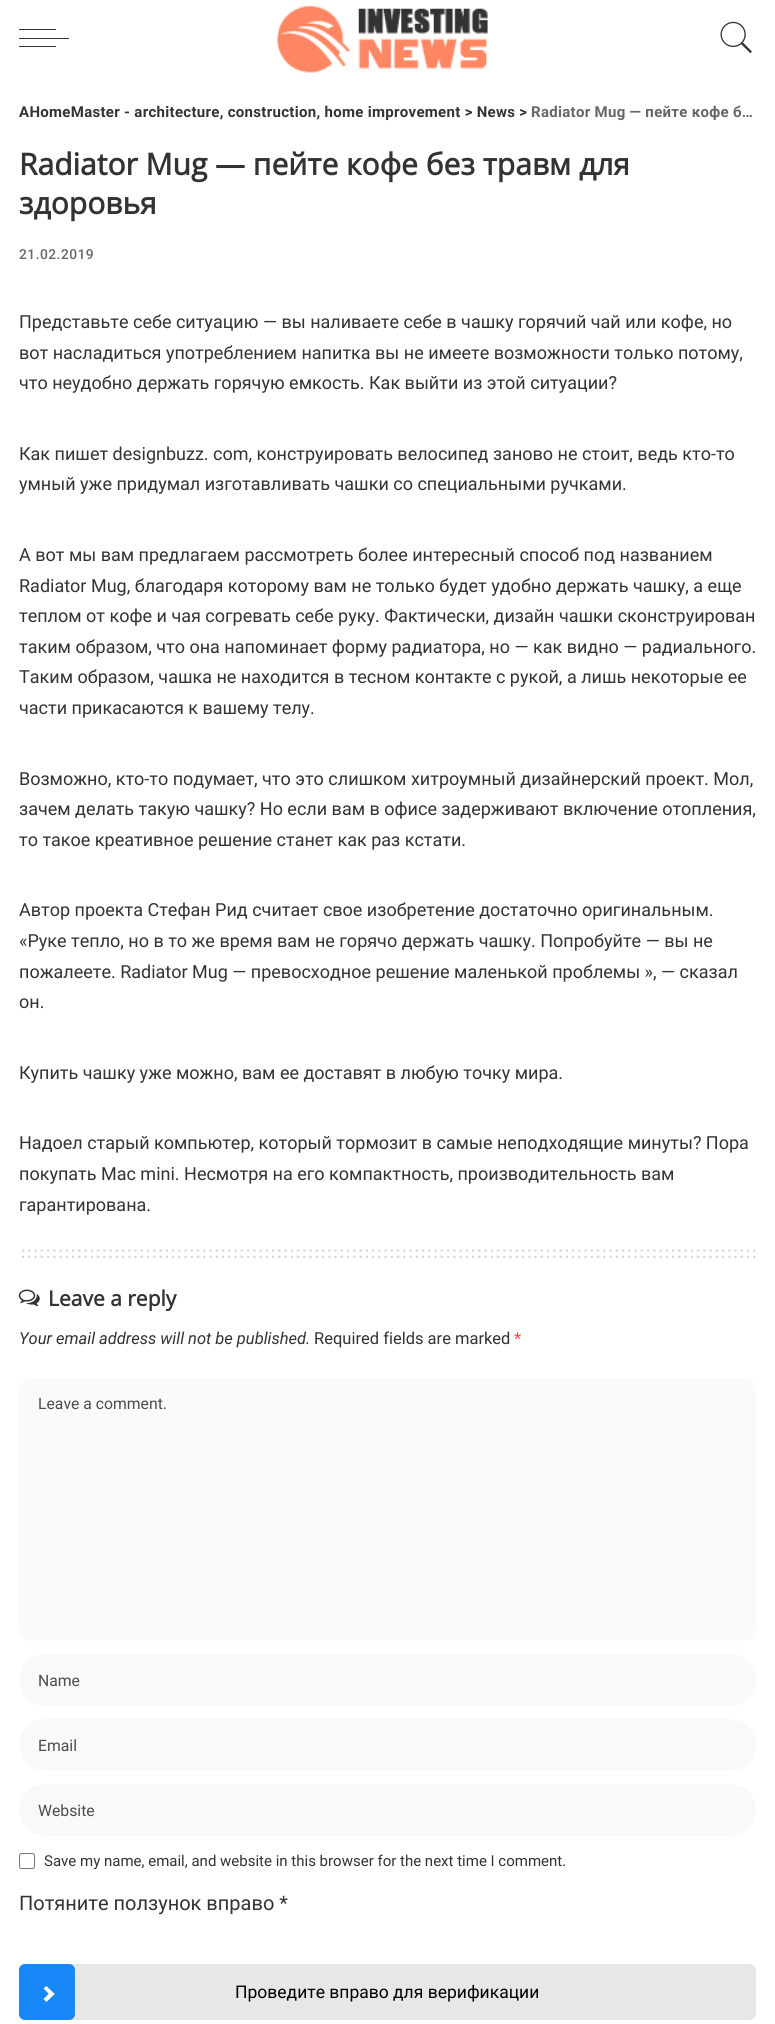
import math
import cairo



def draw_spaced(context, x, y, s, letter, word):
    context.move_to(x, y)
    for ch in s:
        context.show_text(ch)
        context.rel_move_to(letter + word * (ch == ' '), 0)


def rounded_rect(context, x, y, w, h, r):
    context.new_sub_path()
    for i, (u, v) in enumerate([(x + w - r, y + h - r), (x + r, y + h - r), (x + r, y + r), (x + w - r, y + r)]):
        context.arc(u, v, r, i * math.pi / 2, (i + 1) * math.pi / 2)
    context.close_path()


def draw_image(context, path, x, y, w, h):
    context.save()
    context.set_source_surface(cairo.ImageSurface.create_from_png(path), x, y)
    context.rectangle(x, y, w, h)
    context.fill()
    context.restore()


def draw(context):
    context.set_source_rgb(1, 1, 1)
    context.paint()
    context.set_source_rgb(51 / 255, 51 / 255, 51 / 255)
    context.rectangle(19, 38, 50, 1)
    context.fill()
    context.rectangle(19, 29, 37, 1)
    context.fill()
    context.rectangle(19, 46, 37, 1)
    context.fill()
    draw_image(context, "images/1.png", 277, 6, 211, 67)
    draw_image(context, "images/2.png", 720, 21, 32, 33)
    context.new_path()
    context.move_to(23.1, 1250.6)
    context.line_to(754.6, 1250.6)
    context.set_source_rgb(214 / 255, 214 / 255, 214 / 255)
    context.set_line_width(2.5)
    context.set_line_cap(cairo.LineCap.ROUND)
    context.set_dash([0, 6.25])
    context.stroke()
    context.new_path()
    context.move_to(23.1, 1256.9)
    context.line_to(754.6, 1256.9)
    context.stroke()
    draw_image(context, "images/3.png", 18, 1289, 22, 17)
    context.set_source_rgb(250 / 255, 250 / 255, 250 / 255)
    rounded_rect(context, 19, 1378, 737, 263, 13)
    context.fill()
    context.set_source_rgb(249 / 255, 249 / 255, 249 / 255)
    rounded_rect(context, 19, 1654, 737, 52, 26)
    context.fill()
    rounded_rect(context, 19, 1719, 737, 52, 26)
    context.fill()
    rounded_rect(context, 19, 1784, 737, 52, 26)
    context.fill()
    rounded_rect(context, 19.5, 1853.5, 15, 15, 2)
    context.set_source_rgb(118 / 255, 118 / 255, 118 / 255)
    context.set_line_width(1)
    context.set_line_cap(cairo.LineCap.BUTT)
    context.set_dash([])
    context.stroke()
    context.set_source_rgb(231 / 255, 231 / 255, 231 / 255)
    rounded_rect(context, 19, 1964, 737, 56, 6)
    context.fill()
    context.set_source_rgb(24 / 255, 136 / 255, 248 / 255)
    rounded_rect(context, 19, 1964, 56, 56, 6)
    context.fill()
    context.set_source_rgb(1, 1, 1)
    context.new_path()
    context.move_to(43.5, 1988.5)
    context.line_to(46.5, 1986)
    context.line_to(54.5, 1994)
    context.line_to(51.5, 1996.5)
    context.close_path()
    context.fill()
    context.new_path()
    context.move_to(43.5, 1999)
    context.line_to(51.5, 1991)
    context.line_to(54.5, 1994)
    context.line_to(46.5, 2002)
    context.close_path()
    context.fill()
    context.select_font_face("Roboto", cairo.FontSlant.NORMAL, cairo.FontWeight.BOLD)
    context.set_font_size(15)
    context.set_source_rgb(51 / 255, 51 / 255, 51 / 255)
    draw_spaced(context, 19, 117, "AHomeMaster - architecture, construction, home improvement > News >", 0.3, 0)
    context.set_source_rgb(102 / 255, 102 / 255, 102 / 255)
    draw_spaced(context, 531, 117, "Radiator Mug — пейте кофе б…", 0.3, 0)
    context.select_font_face("Open Sans", cairo.FontSlant.NORMAL, cairo.FontWeight.BOLD)
    context.set_font_size(30)
    context.set_source_rgb(51 / 255, 51 / 255, 51 / 255)
    context.move_to(19, 175)
    context.show_text("Radiator Mug — пейте кофе без травм для")
    context.move_to(19, 214)
    context.show_text("здоровья")
    context.select_font_face("Roboto Medium")
    context.set_font_size(13.75)
    context.set_source_rgb(102 / 255, 102 / 255, 102 / 255)
    draw_spaced(context, 19, 259, "21.02.2019", 0.5, 0)
    context.select_font_face("Roboto")
    context.set_font_size(18)
    context.set_source_rgb(51 / 255, 51 / 255, 51 / 255)
    context.move_to(19, 328)
    context.show_text("Представьте себе ситуацию — вы наливаете себе в чашку горячий чай или кофе, но")
    context.move_to(19, 359)
    context.show_text("вот насладиться употреблением напитка вы не имеете возможности только потому,")
    context.move_to(19, 389)
    context.show_text("что неудобно держать горячую емкость. Как выйти из этой ситуации?")
    context.move_to(19, 460)
    context.show_text("Как пишет designbuzz. com, конструировать велосипед заново не стоит, ведь кто-то")
    context.move_to(19, 490)
    context.show_text("умный уже придумал изготавливать чашки со специальными ручками.")
    context.move_to(19, 561)
    context.show_text("А вот мы вам предлагаем рассмотреть более интересный способ под названием")
    context.move_to(19, 592)
    context.show_text("Radiator Mug, благодаря которому вам не только будет удобно держать чашку, а еще")
    context.move_to(19, 622)
    context.show_text("теплом от кофе и чая согревать себе руку. Фактически, дизайн чашки сконструирован")
    context.move_to(19, 653)
    context.show_text("таким образом, что она напоминает форму радиатора, но — как видно — радиального.")
    context.move_to(19, 683)
    context.show_text("Таким образом, чашка не находится в тесном контакте с рукой, а лишь некоторые ее")
    context.move_to(19, 714)
    context.show_text("части прикасаются к вашему телу.")
    context.move_to(19, 785)
    context.show_text("Возможно, кто-то подумает, что это слишком хитроумный дизайнерский проект. Мол,")
    context.move_to(19, 815)
    context.show_text("зачем делать такую чашку? Но если вам в офисе задерживают включение отопления,")
    context.move_to(19, 846)
    context.show_text("то такое креативное решение станет как раз кстати.")
    context.move_to(19, 916)
    context.show_text("Автор проекта Стефан Рид считает свое изобретение достаточно оригинальным.")
    context.move_to(19, 947)
    context.show_text("«Руке тепло, но в то же время вам не горячо держать чашку. Попробуйте — вы не")
    context.move_to(19, 978)
    context.show_text("пожалеете. Radiator Mug — превосходное решение маленькой проблемы », — сказал")
    context.move_to(19, 1008)
    context.show_text("он.")
    context.move_to(19, 1079)
    context.show_text("Купить чашку уже можно, вам ее доставят в любую точку мира.")
    context.move_to(19, 1149)
    context.show_text("Надоел старый компьютер, который тормозит в самые неподходящие минуты? Пора")
    context.move_to(19, 1180)
    context.show_text("покупать Mac mini. Несмотря на его компактность, производительность вам")
    context.move_to(19, 1211)
    context.show_text("гарантирована.")
    context.select_font_face("Open Sans", cairo.FontSlant.NORMAL, cairo.FontWeight.BOLD)
    context.set_font_size(21)
    context.move_to(48, 1306)
    context.show_text("Leave a reply")
    context.select_font_face("Roboto", cairo.FontSlant.ITALIC)
    context.set_font_size(16.5)
    context.move_to(19, 1344)
    context.show_text("Your email address will not be published.")
    context.select_font_face("Roboto")
    context.move_to(314, 1344)
    context.show_text("Required fields are marked")
    context.set_source_rgb(1, 69 / 255, 69 / 255)
    context.move_to(514, 1344)
    context.show_text("*")
    context.set_font_size(15.75)
    context.set_source_rgb(75 / 255, 75 / 255, 75 / 255)
    context.move_to(38, 1409)
    context.show_text("Leave a comment.")
    context.move_to(38, 1686)
    context.show_text("Name")
    context.move_to(38, 1751)
    context.show_text("Email")
    context.move_to(38, 1816)
    context.show_text("Website")
    context.set_font_size(15)
    context.set_source_rgb(51 / 255, 51 / 255, 51 / 255)
    context.move_to(44, 1866)
    context.show_text("Save my name, email, and website in this browser for the next time I comment.")
    context.set_font_size(20)
    context.move_to(19, 1910)
    context.show_text("Потяните ползунок вправо *")
    context.set_font_size(17.5)
    context.set_source_rgb(0, 0, 0)
    context.move_to(235, 1998)
    context.show_text("Проведите вправо для верификации")


surface = cairo.ImageSurface(cairo.Format.RGB24, 775, 2024)
context = cairo.Context(surface)
options = cairo.FontOptions()
options.set_hint_metrics(cairo.HintMetrics.OFF)
options.set_hint_style(cairo.HintStyle.NONE)
context.set_font_options(options)
context.set_miter_limit(4)
draw(context)
surface.write_to_png("out.png")
